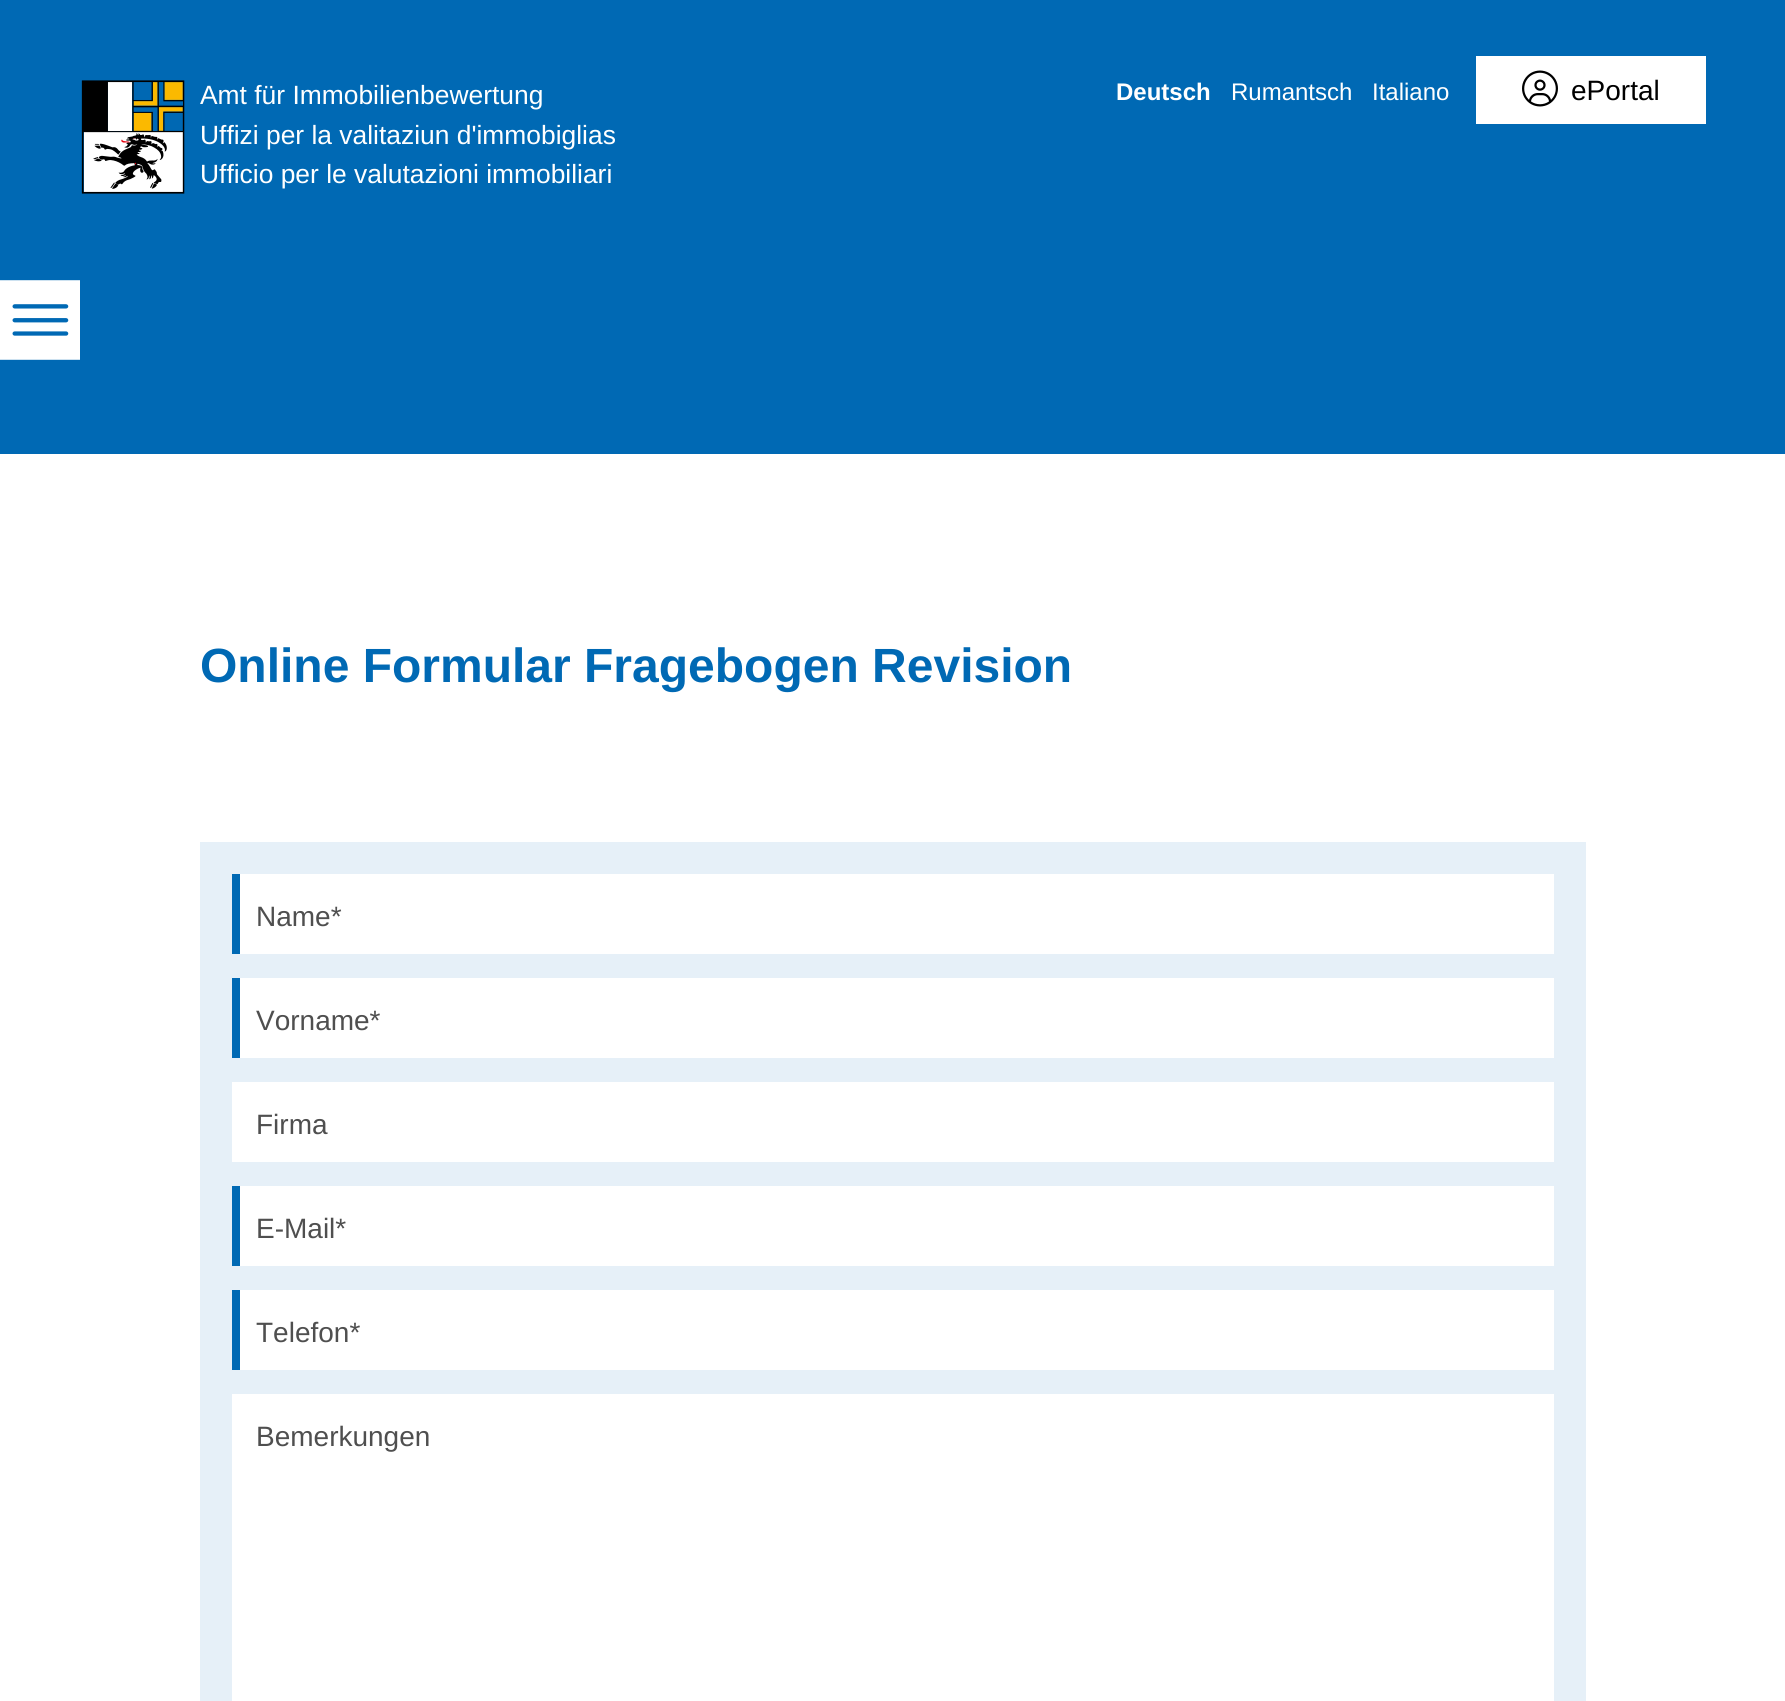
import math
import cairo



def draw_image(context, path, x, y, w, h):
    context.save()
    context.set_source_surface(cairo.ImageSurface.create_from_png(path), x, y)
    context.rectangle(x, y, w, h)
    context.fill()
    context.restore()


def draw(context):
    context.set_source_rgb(1, 1, 1)
    context.paint()
    context.set_source_rgb(0, 105 / 255, 180 / 255)
    context.rectangle(0, 0, 1785, 454)
    context.fill()
    draw_image(context, "images/1.png", 81, 80, 104, 114)
    context.set_source_rgb(1, 1, 1)
    context.rectangle(1476, 56, 230, 68)
    context.fill()
    draw_image(context, "images/2.png", 1522, 70, 36, 37)
    draw_image(context, "images/3.png", 0, 280, 80, 80)
    context.set_source_rgb(230 / 255, 240 / 255, 248 / 255)
    context.rectangle(200, 842, 1386, 859)
    context.fill()
    context.set_source_rgb(1, 1, 1)
    context.rectangle(240, 874, 1314, 80)
    context.fill()
    context.set_source_rgb(0, 105 / 255, 180 / 255)
    context.rectangle(232, 874, 8, 80)
    context.fill()
    context.set_source_rgb(1, 1, 1)
    context.rectangle(240, 978, 1314, 80)
    context.fill()
    context.set_source_rgb(0, 105 / 255, 180 / 255)
    context.rectangle(232, 978, 8, 80)
    context.fill()
    context.set_source_rgb(1, 1, 1)
    context.rectangle(232, 1082, 1322, 80)
    context.fill()
    context.rectangle(240, 1186, 1314, 80)
    context.fill()
    context.set_source_rgb(0, 105 / 255, 180 / 255)
    context.rectangle(232, 1186, 8, 80)
    context.fill()
    context.set_source_rgb(1, 1, 1)
    context.rectangle(240, 1290, 1314, 80)
    context.fill()
    context.set_source_rgb(0, 105 / 255, 180 / 255)
    context.rectangle(232, 1290, 8, 80)
    context.fill()
    context.set_source_rgb(1, 1, 1)
    context.rectangle(232, 1394, 1322, 307)
    context.fill()
    context.select_font_face("Liberation Sans")
    context.set_font_size(26.4)
    context.move_to(200, 104)
    context.show_text("Amt für Immobilienbewertung")
    context.move_to(200, 144)
    context.show_text("Uffizi per la valitaziun d'immobiglias")
    context.move_to(200, 183)
    context.show_text("Ufficio per le valutazioni immobiliari")
    context.select_font_face("Liberation Sans", cairo.FontSlant.NORMAL, cairo.FontWeight.BOLD)
    context.set_font_size(24)
    context.move_to(1116, 100)
    context.show_text("Deutsch")
    context.select_font_face("Liberation Sans")
    context.move_to(1231, 100)
    context.show_text("Rumantsch")
    context.move_to(1372, 100)
    context.show_text("Italiano")
    context.set_font_size(28)
    context.set_source_rgb(0, 0, 0)
    context.move_to(1571, 100)
    context.show_text("ePortal")
    context.select_font_face("Liberation Sans", cairo.FontSlant.NORMAL, cairo.FontWeight.BOLD)
    context.set_font_size(48)
    context.set_source_rgb(0, 105 / 255, 180 / 255)
    context.move_to(200, 682)
    context.show_text("Online Formular Fragebogen Revision")
    context.select_font_face("Liberation Sans")
    context.set_font_size(28)
    context.set_source_rgb(79 / 255, 79 / 255, 79 / 255)
    context.move_to(256, 926)
    context.show_text("Name*")
    context.move_to(256, 1030)
    context.show_text("Vorname*")
    context.move_to(256, 1134)
    context.show_text("Firma")
    context.move_to(256, 1238)
    context.show_text("E-Mail*")
    context.move_to(256, 1342)
    context.show_text("Telefon*")
    context.move_to(256, 1446)
    context.show_text("Bemerkungen")


surface = cairo.ImageSurface(cairo.Format.RGB24, 1785, 1701)
context = cairo.Context(surface)
options = cairo.FontOptions()
options.set_hint_metrics(cairo.HintMetrics.OFF)
options.set_hint_style(cairo.HintStyle.NONE)
context.set_font_options(options)
context.set_miter_limit(4)
draw(context)
surface.write_to_png("out.png")
